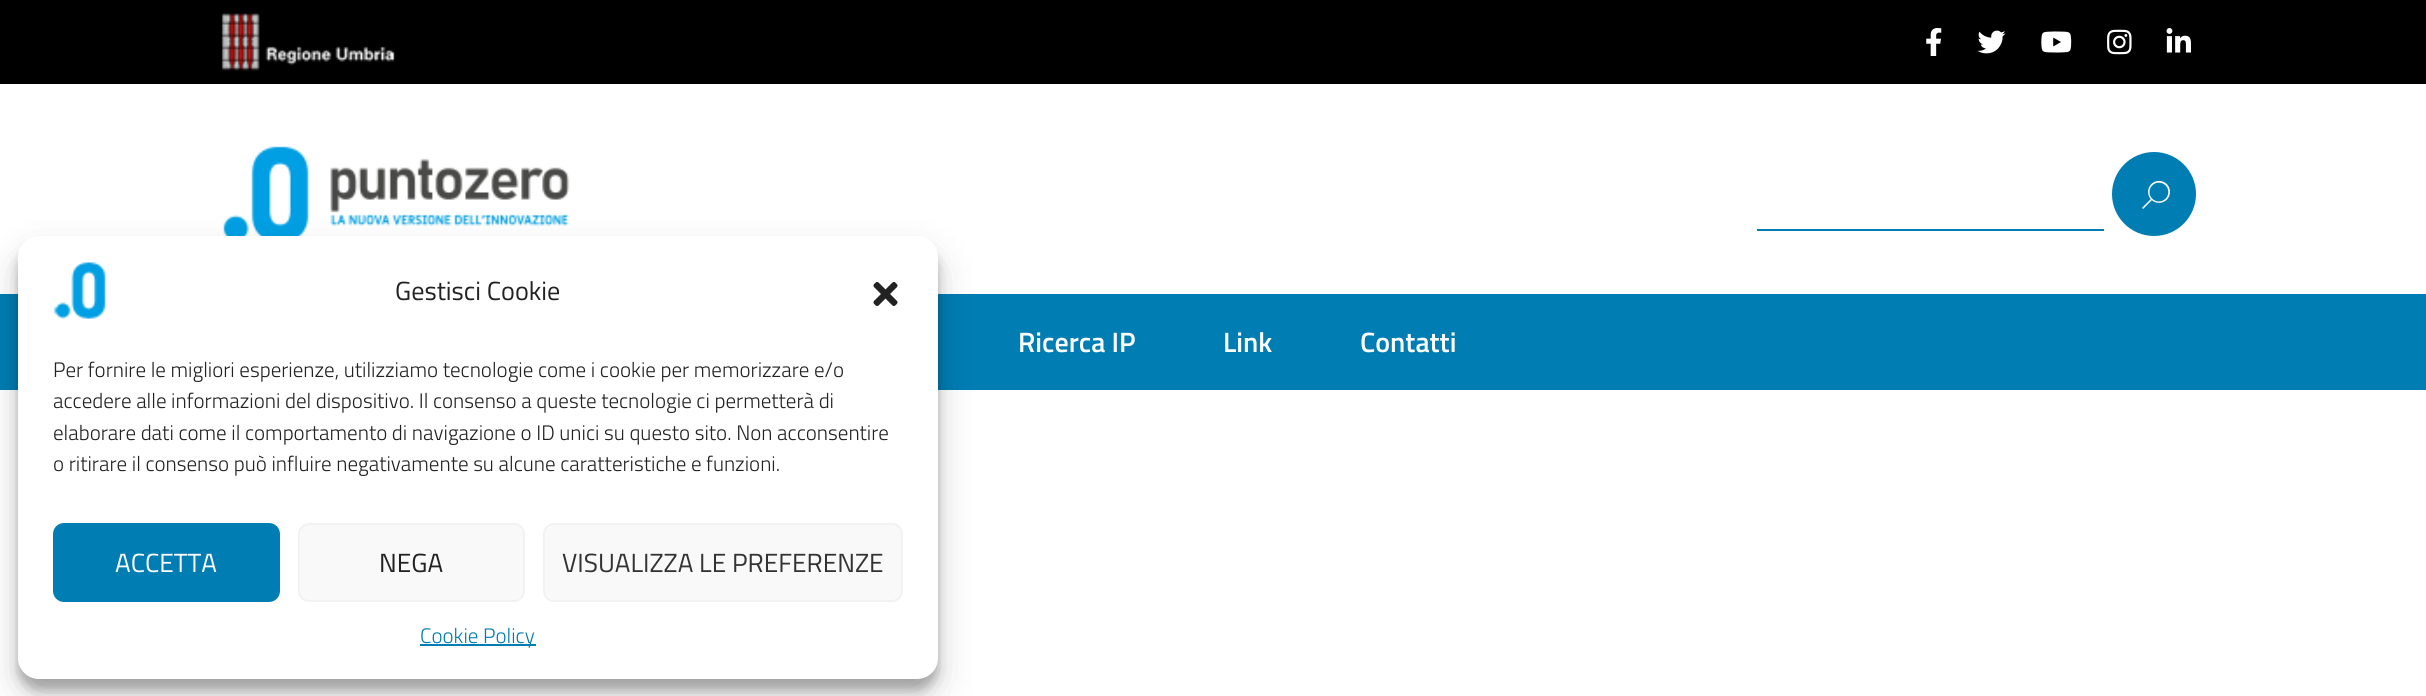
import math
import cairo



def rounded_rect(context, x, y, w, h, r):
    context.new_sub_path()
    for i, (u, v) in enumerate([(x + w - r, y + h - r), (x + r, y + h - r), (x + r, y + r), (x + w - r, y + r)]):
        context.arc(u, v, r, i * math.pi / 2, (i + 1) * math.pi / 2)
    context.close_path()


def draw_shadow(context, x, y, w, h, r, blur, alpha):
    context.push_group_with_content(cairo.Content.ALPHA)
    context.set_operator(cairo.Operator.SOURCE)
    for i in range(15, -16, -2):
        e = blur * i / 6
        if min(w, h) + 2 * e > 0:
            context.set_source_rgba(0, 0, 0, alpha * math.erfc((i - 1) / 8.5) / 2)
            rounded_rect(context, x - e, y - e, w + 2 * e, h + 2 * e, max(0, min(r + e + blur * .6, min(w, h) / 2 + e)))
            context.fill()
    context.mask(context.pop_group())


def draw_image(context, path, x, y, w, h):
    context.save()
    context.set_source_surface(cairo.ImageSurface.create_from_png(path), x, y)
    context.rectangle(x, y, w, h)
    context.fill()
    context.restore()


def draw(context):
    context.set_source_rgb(1, 1, 1)
    context.paint()
    draw_image(context, "images/9.png", 223, 146, 347, 90)
    context.set_source_rgb(0, 125 / 255, 179 / 255)
    context.rectangle(0, 294, 2426, 96)
    context.fill()
    context.set_source_rgb(0, 0, 0)
    draw_shadow(context, 18, 247, 920, 443, 21, 5, 0.23)
    draw_shadow(context, 18, 254, 920, 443, 21, 17.5, 0.19)
    context.set_source_rgb(1, 1, 1)
    rounded_rect(context, 18, 236, 920, 443, 21)
    context.fill()
    draw_image(context, "images/1.png", 53, 262, 53, 57)
    draw_image(context, "images/2.png", 873, 282, 25, 24)
    context.set_source_rgb(0, 125 / 255, 179 / 255)
    rounded_rect(context, 54, 524, 225, 77, 10)
    context.fill_preserve()
    context.stroke()
    context.set_source_rgb(249 / 255, 249 / 255, 249 / 255)
    rounded_rect(context, 299, 524, 225, 77, 10)
    context.fill_preserve()
    context.set_source_rgb(242 / 255, 242 / 255, 242 / 255)
    context.stroke()
    context.set_source_rgb(249 / 255, 249 / 255, 249 / 255)
    rounded_rect(context, 544, 524, 358, 77, 10)
    context.fill_preserve()
    context.set_source_rgb(242 / 255, 242 / 255, 242 / 255)
    context.stroke()
    context.set_source_rgb(0, 125 / 255, 179 / 255)
    context.rectangle(420, 644, 116, 2)
    context.fill()
    context.set_source_rgb(0, 0, 0)
    context.rectangle(0, 0, 2426, 84)
    context.fill()
    draw_image(context, "images/3.png", 221, 13, 174, 58)
    draw_image(context, "images/4.png", 1926, 28, 16, 28)
    draw_image(context, "images/5.png", 1977, 30, 29, 24)
    draw_image(context, "images/6.png", 2041, 31, 31, 22)
    draw_image(context, "images/7.png", 2107, 29, 25, 26)
    draw_image(context, "images/8.png", 2166, 28, 25, 25)
    context.set_source_rgb(0, 125 / 255, 179 / 255)
    context.rectangle(1757, 229, 347, 2)
    context.fill()
    context.arc(2154, 194, 42, 0, 2 * math.pi)
    context.fill()
    draw_image(context, "images/10.png", 2142, 180, 28, 29)
    context.select_font_face("Titillium Web")
    context.set_font_size(26.25)
    context.set_source_rgb(34 / 255, 34 / 255, 34 / 255)
    context.move_to(395, 300)
    context.show_text("Gestisci Cookie")
    context.select_font_face("Titillium Web Light")
    context.set_font_size(21)
    context.move_to(53, 377)
    context.show_text("Per fornire le migliori esperienze, utilizziamo tecnologie come i cookie per memorizzare e/o")
    context.move_to(53, 408)
    context.show_text("accedere alle informazioni del dispositivo. Il consenso a queste tecnologie ci permetterà di")
    context.move_to(53, 440)
    context.show_text("elaborare dati come il comportamento di navigazione o ID unici su questo sito. Non acconsentire")
    context.move_to(53, 471)
    context.show_text("o ritirare il consenso può influire negativamente su alcune caratteristiche e funzioni.")
    context.select_font_face("Titillium Web")
    context.set_font_size(26.25)
    context.set_source_rgb(1, 1, 1)
    context.move_to(115, 572)
    context.show_text("ACCETTA")
    context.set_source_rgb(34 / 255, 34 / 255, 34 / 255)
    context.move_to(379, 572)
    context.show_text("NEGA")
    context.set_source_rgb(51 / 255, 51 / 255, 51 / 255)
    context.move_to(562, 572)
    context.show_text("VISUALIZZA LE PREFERENZE")
    context.select_font_face("Titillium Web Light")
    context.set_font_size(21)
    context.set_source_rgb(0, 125 / 255, 179 / 255)
    context.move_to(420, 643)
    context.show_text("Cookie Policy")
    context.select_font_face("Titillium Web SemiBold")
    context.set_font_size(28)
    context.set_source_rgb(1, 1, 1)
    context.move_to(1018, 352)
    context.show_text("Ricerca IP")
    context.move_to(1223, 352)
    context.show_text("Link")
    context.move_to(1360, 352)
    context.show_text("Contatti")


surface = cairo.ImageSurface(cairo.Format.RGB24, 2426, 696)
context = cairo.Context(surface)
options = cairo.FontOptions()
options.set_hint_metrics(cairo.HintMetrics.OFF)
options.set_hint_style(cairo.HintStyle.NONE)
context.set_font_options(options)
context.set_miter_limit(4)
draw(context)
surface.write_to_png("out.png")
